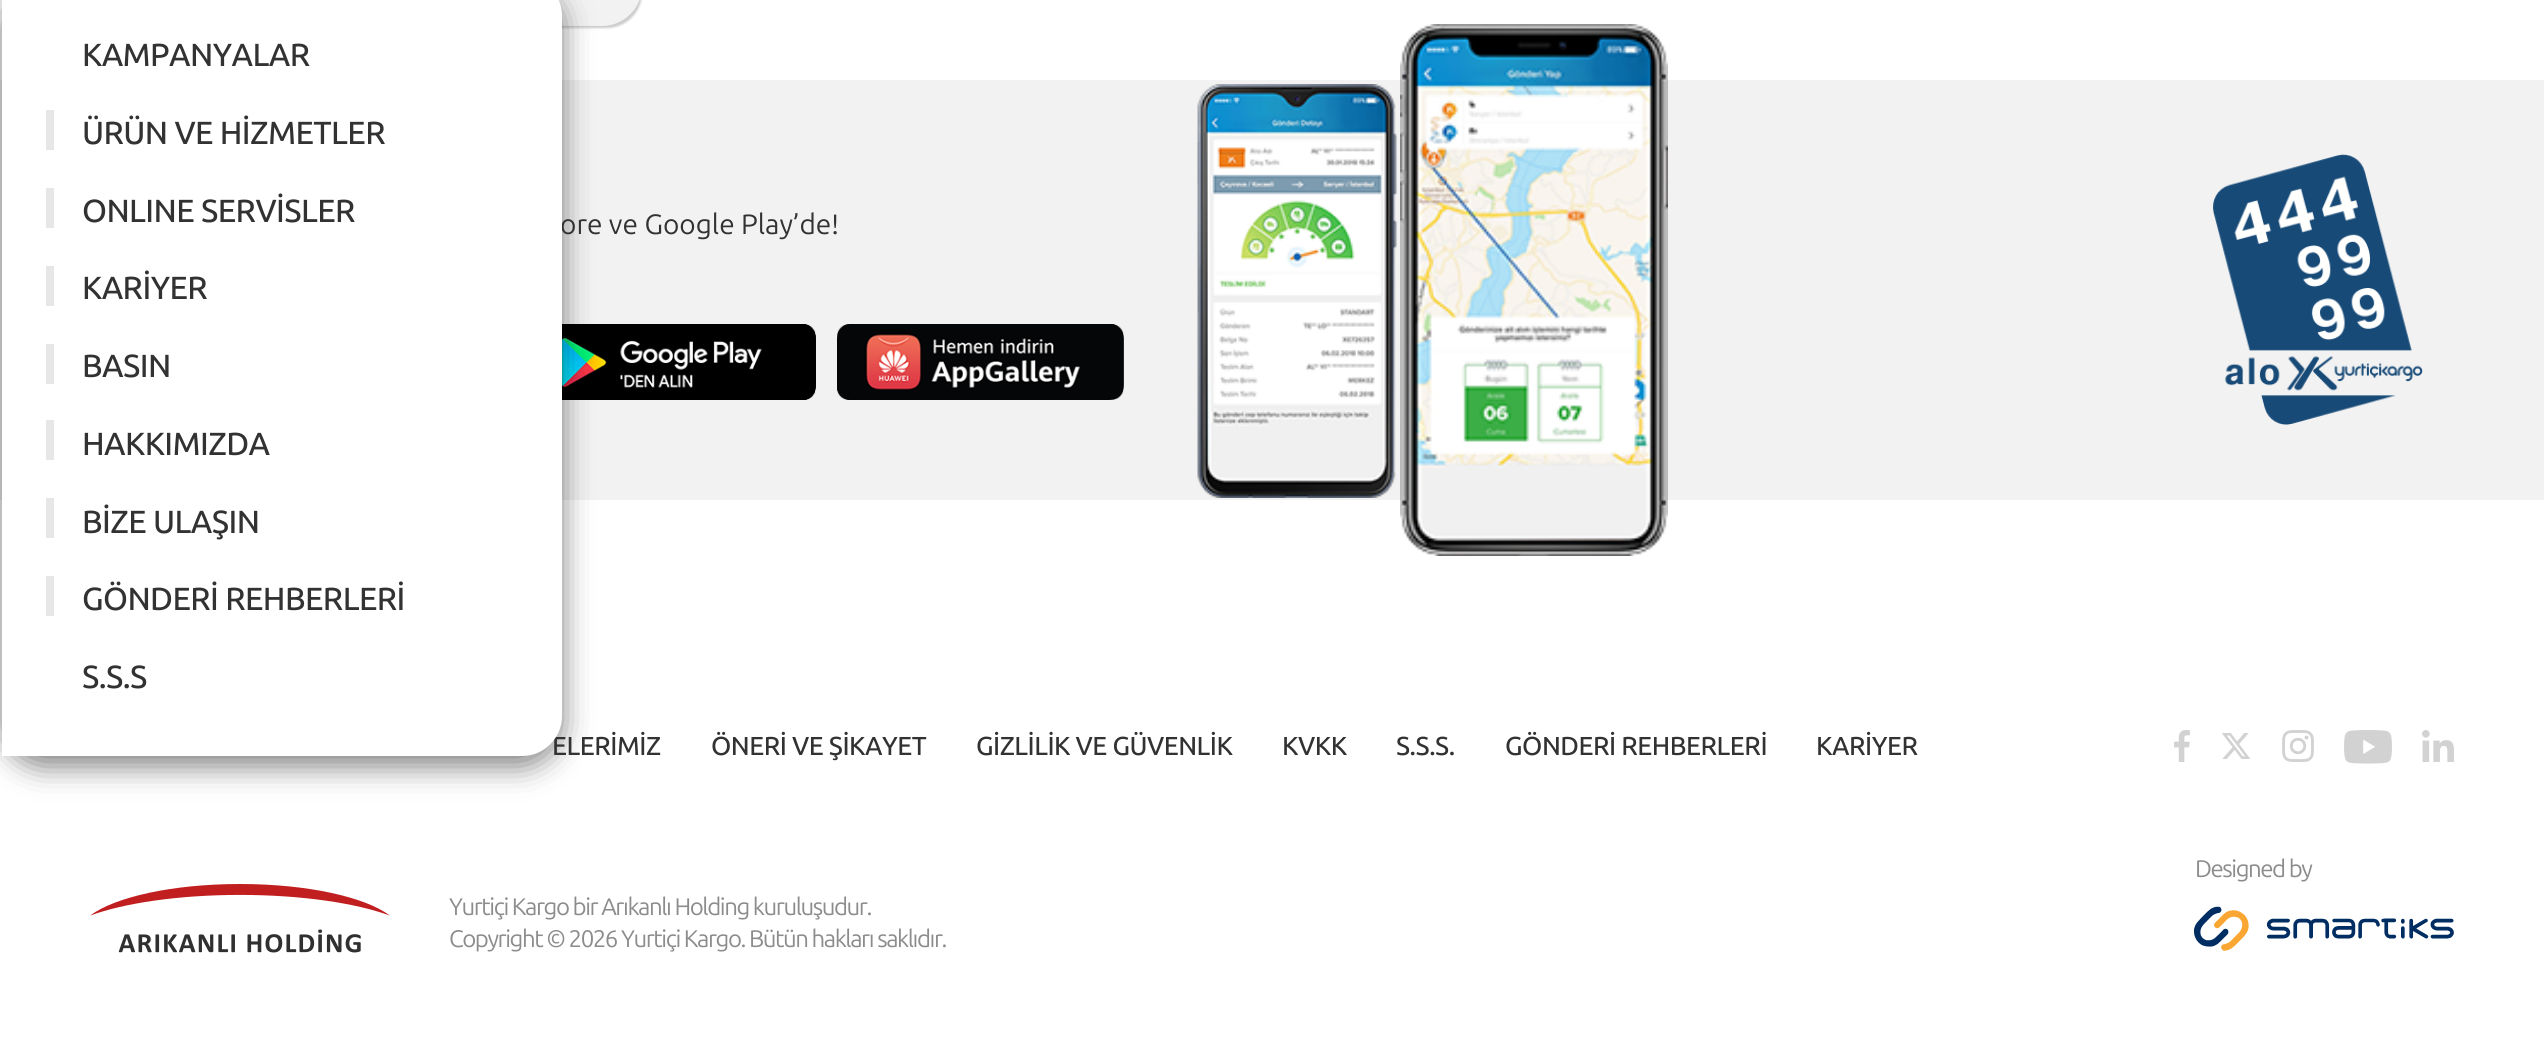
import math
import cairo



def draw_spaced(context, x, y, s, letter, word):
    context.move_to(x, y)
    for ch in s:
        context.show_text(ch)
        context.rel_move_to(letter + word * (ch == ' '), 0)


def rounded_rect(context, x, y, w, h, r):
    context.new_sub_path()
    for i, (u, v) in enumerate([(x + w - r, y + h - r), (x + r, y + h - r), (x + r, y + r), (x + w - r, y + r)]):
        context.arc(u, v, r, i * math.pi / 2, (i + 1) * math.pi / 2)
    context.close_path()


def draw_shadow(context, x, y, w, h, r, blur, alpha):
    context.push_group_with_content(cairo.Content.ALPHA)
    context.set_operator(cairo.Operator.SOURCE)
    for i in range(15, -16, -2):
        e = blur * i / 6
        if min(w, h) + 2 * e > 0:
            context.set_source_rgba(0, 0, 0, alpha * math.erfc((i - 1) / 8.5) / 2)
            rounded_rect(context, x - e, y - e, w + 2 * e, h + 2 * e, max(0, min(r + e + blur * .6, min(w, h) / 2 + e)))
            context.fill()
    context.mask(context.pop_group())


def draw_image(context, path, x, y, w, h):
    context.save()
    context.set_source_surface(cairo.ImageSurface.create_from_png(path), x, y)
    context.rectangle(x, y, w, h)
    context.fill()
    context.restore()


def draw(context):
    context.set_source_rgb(1, 1, 1)
    context.paint()
    context.set_source_rgb(0, 0, 0)
    draw_shadow(context, 2, -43, 640, 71, 40, 1, 0.2)
    context.set_source_rgb(242 / 255, 242 / 255, 242 / 255)
    context.new_path()
    context.move_to(2, -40)
    context.line_to(602, -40)
    context.curve_to(624, -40, 642, -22, 642, 0)
    context.line_to(642, -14)
    context.curve_to(642, 8, 624, 26, 602, 26)
    context.line_to(2, 26)
    context.close_path()
    context.fill()
    context.rectangle(0, 80, 2544, 420)
    context.fill()
    draw_image(context, "images/1.png", 562, 324, 254, 76)
    context.set_source_rgb(0, 0, 0)
    draw_shadow(context, 2, -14, 560, 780, 40, 15, 0.5)
    draw_image(context, "images/2.png", 837, 324, 287, 76)
    draw_image(context, "images/3.png", 1197, 84, 200, 414)
    draw_image(context, "images/4.png", 1400, 24, 268, 532)
    draw_image(context, "images/5.png", 2213, 154, 210, 271)
    draw_image(context, "images/6.png", 2174, 730, 16, 32)
    draw_image(context, "images/7.png", 2222, 733, 29, 26)
    draw_image(context, "images/8.png", 2282, 730, 32, 32)
    draw_image(context, "images/9.png", 2344, 730, 48, 34)
    draw_image(context, "images/10.png", 2422, 730, 32, 32)
    draw_image(context, "images/11.png", 2194, 906, 260, 45)
    draw_image(context, "images/12.png", 90, 884, 300, 69)
    context.select_font_face("Ubuntu")
    context.set_font_size(28)
    context.set_source_rgb(50 / 255, 50 / 255, 50 / 255)
    context.move_to(560, 234)
    context.show_text("ore ve Google Play’de!")
    context.select_font_face("Ubuntu Medium")
    context.set_font_size(26)
    draw_spaced(context, 552, 755, "ELERİMİZ", -0.5, 0)
    context.set_source_rgb(1, 1, 1)
    context.new_path()
    context.move_to(2, -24)
    context.line_to(522, -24)
    context.curve_to(544, -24, 562, -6, 562, 16)
    context.line_to(562, 716)
    context.curve_to(562, 738, 544, 756, 522, 756)
    context.line_to(2, 756)
    context.close_path()
    context.fill()
    context.set_source_rgb(231 / 255, 231 / 255, 231 / 255)
    context.rectangle(46, 576, 8, 40)
    context.fill()
    context.rectangle(46, 498, 8, 40)
    context.fill()
    context.rectangle(46, 420, 8, 40)
    context.fill()
    context.rectangle(46, 344, 8, 40)
    context.fill()
    context.rectangle(46, 266, 8, 40)
    context.fill()
    context.rectangle(46, 188, 8, 40)
    context.fill()
    context.rectangle(46, 110, 8, 40)
    context.fill()
    context.set_font_size(32)
    context.set_source_rgb(50 / 255, 50 / 255, 50 / 255)
    draw_spaced(context, 82, 688, "S.S.S", -0.6, 0)
    draw_spaced(context, 82, 610, "GÖNDERİ REHBERLERİ", -0.6, 0)
    draw_spaced(context, 82, 533, "BİZE ULAŞIN", -0.6, 0)
    draw_spaced(context, 82, 455, "HAKKIMIZDA", -0.6, 0)
    draw_spaced(context, 82, 377, "BASIN", -0.6, 0)
    draw_spaced(context, 82, 299, "KARİYER", -0.6, 0)
    draw_spaced(context, 82, 222, "ONLINE SERVİSLER", -0.6, 0)
    draw_spaced(context, 82, 144, "ÜRÜN VE HİZMETLER", -0.6, 0)
    draw_spaced(context, 82, 66, "KAMPANYALAR", -0.6, 0)
    context.set_font_size(26)
    draw_spaced(context, 711, 755, "ÖNERİ VE ŞİKAYET", -0.5, 0)
    draw_spaced(context, 976, 755, "GİZLİLİK VE GÜVENLİK", -0.5, 0)
    draw_spaced(context, 1282, 755, "KVKK", -0.5, 0)
    draw_spaced(context, 1396, 755, "S.S.S.", -0.5, 0)
    draw_spaced(context, 1505, 755, "GÖNDERİ REHBERLERİ", -0.5, 0)
    draw_spaced(context, 1816, 755, "KARİYER", -0.5, 0)
    context.select_font_face("Ubuntu")
    context.set_font_size(24)
    context.set_source_rgb(140 / 255, 140 / 255, 140 / 255)
    draw_spaced(context, 2195, 877, "Designed by", -1.45, 0)
    draw_spaced(context, 449, 915, "Yurtiçi Kargo bir Arıkanlı Holding kuruluşudur.", -1.45, 0)
    draw_spaced(context, 449, 947, "Copyright © 2026 Yurtiçi Kargo. Bütün hakları saklıdır.", -1.45, 0)


surface = cairo.ImageSurface(cairo.Format.RGB24, 2544, 1063)
context = cairo.Context(surface)
options = cairo.FontOptions()
options.set_hint_metrics(cairo.HintMetrics.OFF)
options.set_hint_style(cairo.HintStyle.NONE)
context.set_font_options(options)
context.set_miter_limit(4)
draw(context)
surface.write_to_png("out.png")
